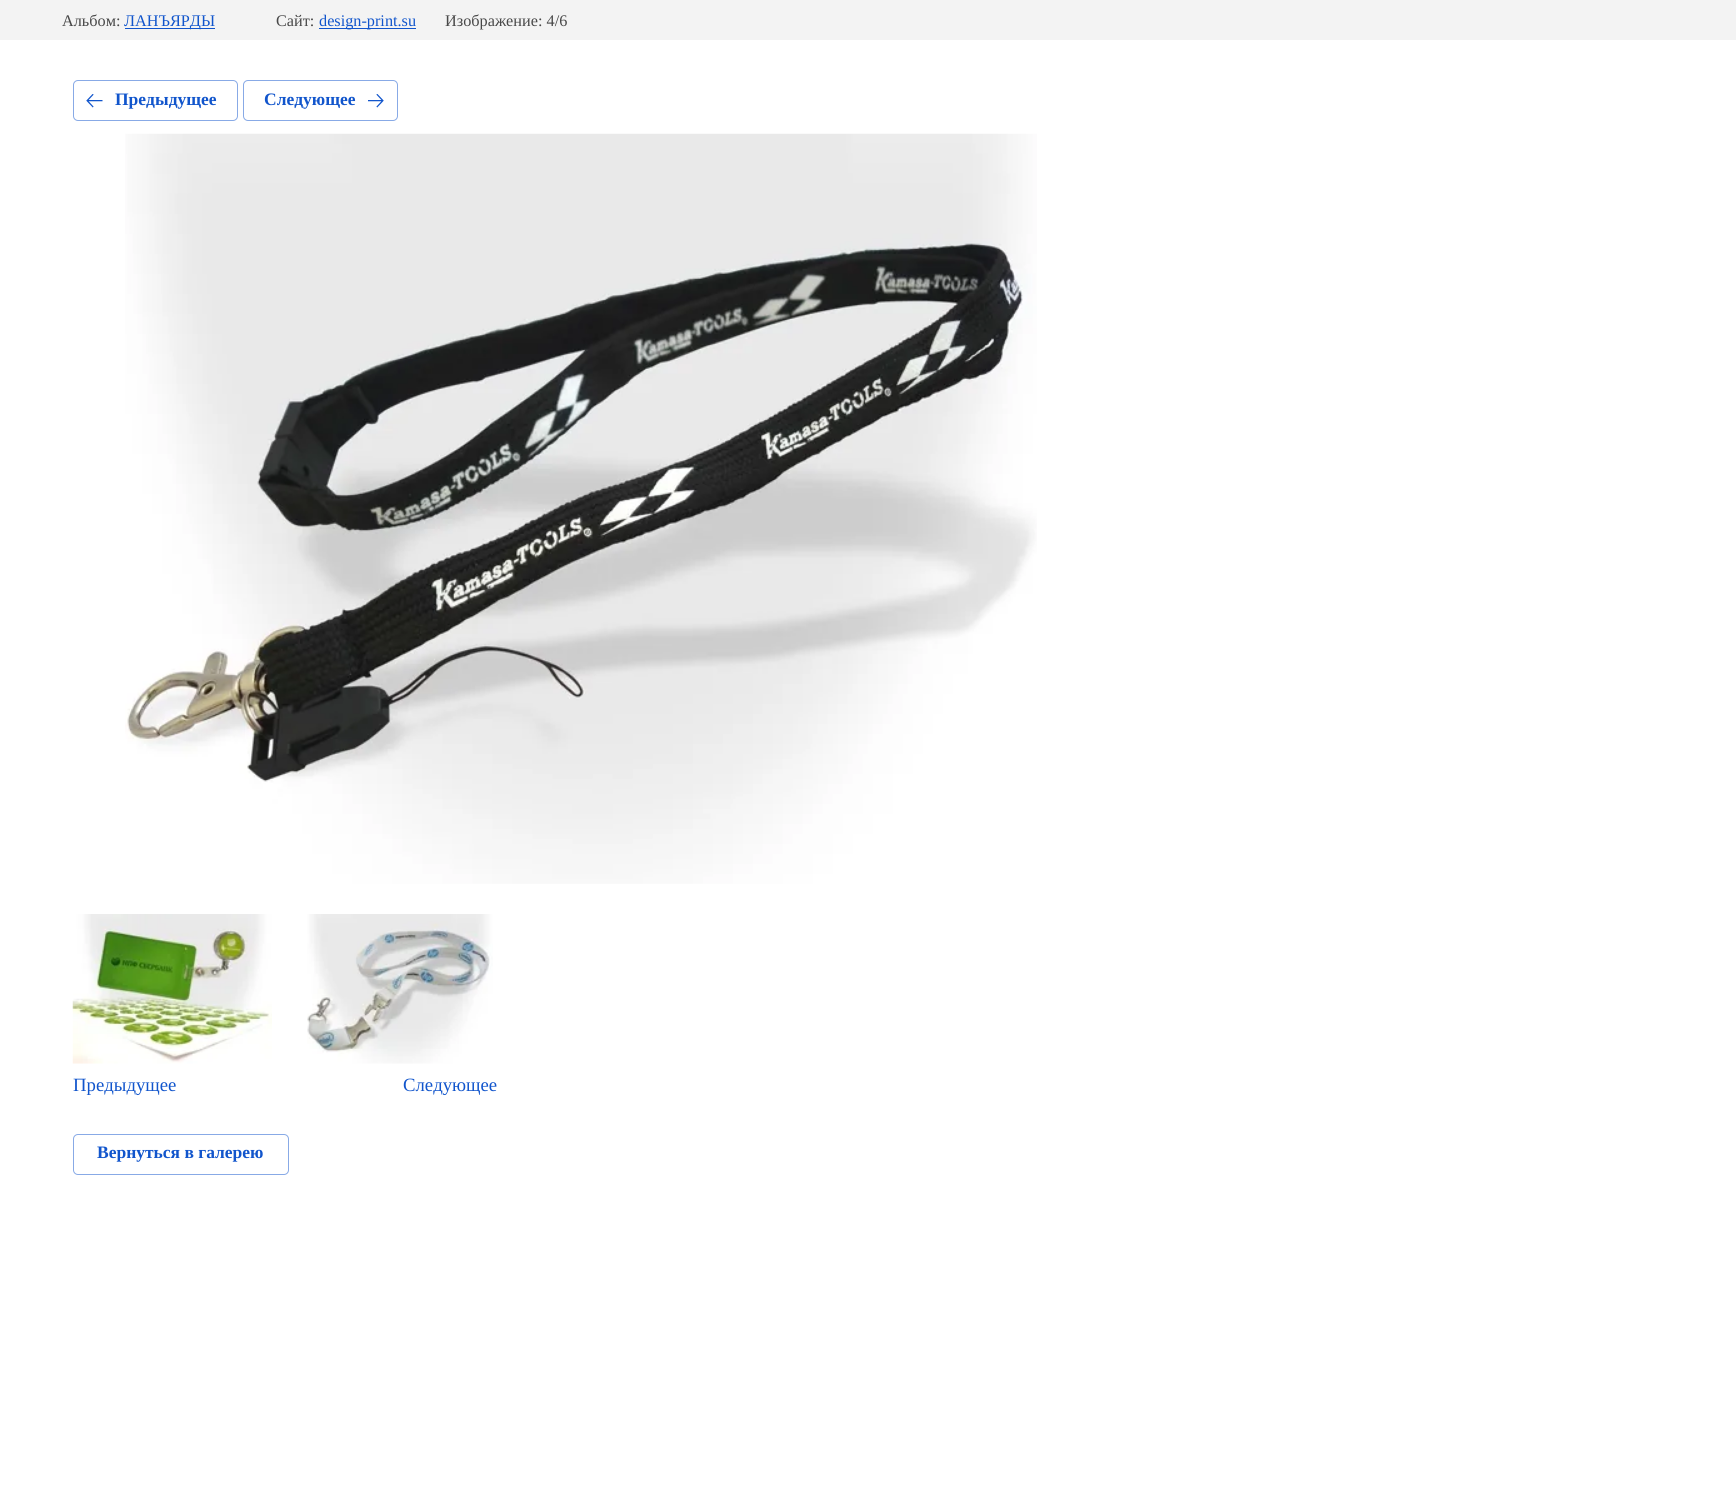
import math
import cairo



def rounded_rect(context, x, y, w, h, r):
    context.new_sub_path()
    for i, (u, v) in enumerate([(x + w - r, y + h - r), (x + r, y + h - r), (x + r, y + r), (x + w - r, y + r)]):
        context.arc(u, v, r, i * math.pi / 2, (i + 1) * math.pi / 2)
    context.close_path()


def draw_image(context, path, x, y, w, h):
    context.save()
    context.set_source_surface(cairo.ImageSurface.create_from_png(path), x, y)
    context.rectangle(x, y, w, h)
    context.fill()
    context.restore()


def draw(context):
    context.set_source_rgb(1, 1, 1)
    context.paint()
    context.set_source_rgb(243 / 255, 243 / 255, 243 / 255)
    context.rectangle(0, 0, 1736, 40)
    context.fill()
    context.set_source_rgb(17 / 255, 85 / 255, 204 / 255)
    context.rectangle(125, 28, 90, 1)
    context.fill()
    context.rectangle(319, 28, 97, 1)
    context.fill()
    rounded_rect(context, 73.5, 80.5, 164, 40, 4.5)
    context.set_source_rgb(136 / 255, 170 / 255, 230 / 255)
    context.set_line_width(1)
    context.stroke()
    draw_image(context, "images/1.png", 86, 94, 17, 14)
    rounded_rect(context, 243.5, 80.5, 154, 40, 4.5)
    context.stroke()
    draw_image(context, "images/2.png", 368, 94, 16, 14)
    draw_image(context, "images/3.png", 125, 133, 912, 751)
    draw_image(context, "images/4.png", 72, 914, 200, 150)
    draw_image(context, "images/5.png", 307, 914, 186, 150)
    rounded_rect(context, 73.5, 1134.5, 215, 40, 4.5)
    context.stroke()
    context.select_font_face("Liberation Serif")
    context.set_font_size(16.25)
    context.set_source_rgb(72 / 255, 72 / 255, 72 / 255)
    context.move_to(62, 26)
    context.show_text("Альбом:")
    context.set_source_rgb(17 / 255, 85 / 255, 204 / 255)
    context.move_to(124, 26)
    context.show_text("ЛАНЪЯРДЫ")
    context.set_source_rgb(72 / 255, 72 / 255, 72 / 255)
    context.move_to(276, 26)
    context.show_text("Сайт:")
    context.set_source_rgb(17 / 255, 85 / 255, 204 / 255)
    context.move_to(319, 26)
    context.show_text("design-print.su")
    context.set_source_rgb(72 / 255, 72 / 255, 72 / 255)
    context.move_to(445, 26)
    context.show_text("Изображение: 4/6")
    context.select_font_face("Liberation Serif", cairo.FontSlant.NORMAL, cairo.FontWeight.BOLD)
    context.set_font_size(17.5)
    context.set_source_rgb(17 / 255, 85 / 255, 204 / 255)
    context.move_to(115, 105)
    context.show_text("Предыдущее")
    context.move_to(264, 105)
    context.show_text("Следующее")
    context.select_font_face("Liberation Serif")
    context.set_font_size(18.75)
    context.move_to(73, 1091)
    context.show_text("Предыдущее")
    context.move_to(403, 1091)
    context.show_text("Следующее")
    context.select_font_face("Liberation Serif", cairo.FontSlant.NORMAL, cairo.FontWeight.BOLD)
    context.set_font_size(17.5)
    context.move_to(97, 1158)
    context.show_text("Вернуться в галерею")


surface = cairo.ImageSurface(cairo.Format.RGB24, 1736, 1508)
context = cairo.Context(surface)
options = cairo.FontOptions()
options.set_hint_metrics(cairo.HintMetrics.OFF)
options.set_hint_style(cairo.HintStyle.NONE)
context.set_font_options(options)
context.set_miter_limit(4)
draw(context)
surface.write_to_png("out.png")
